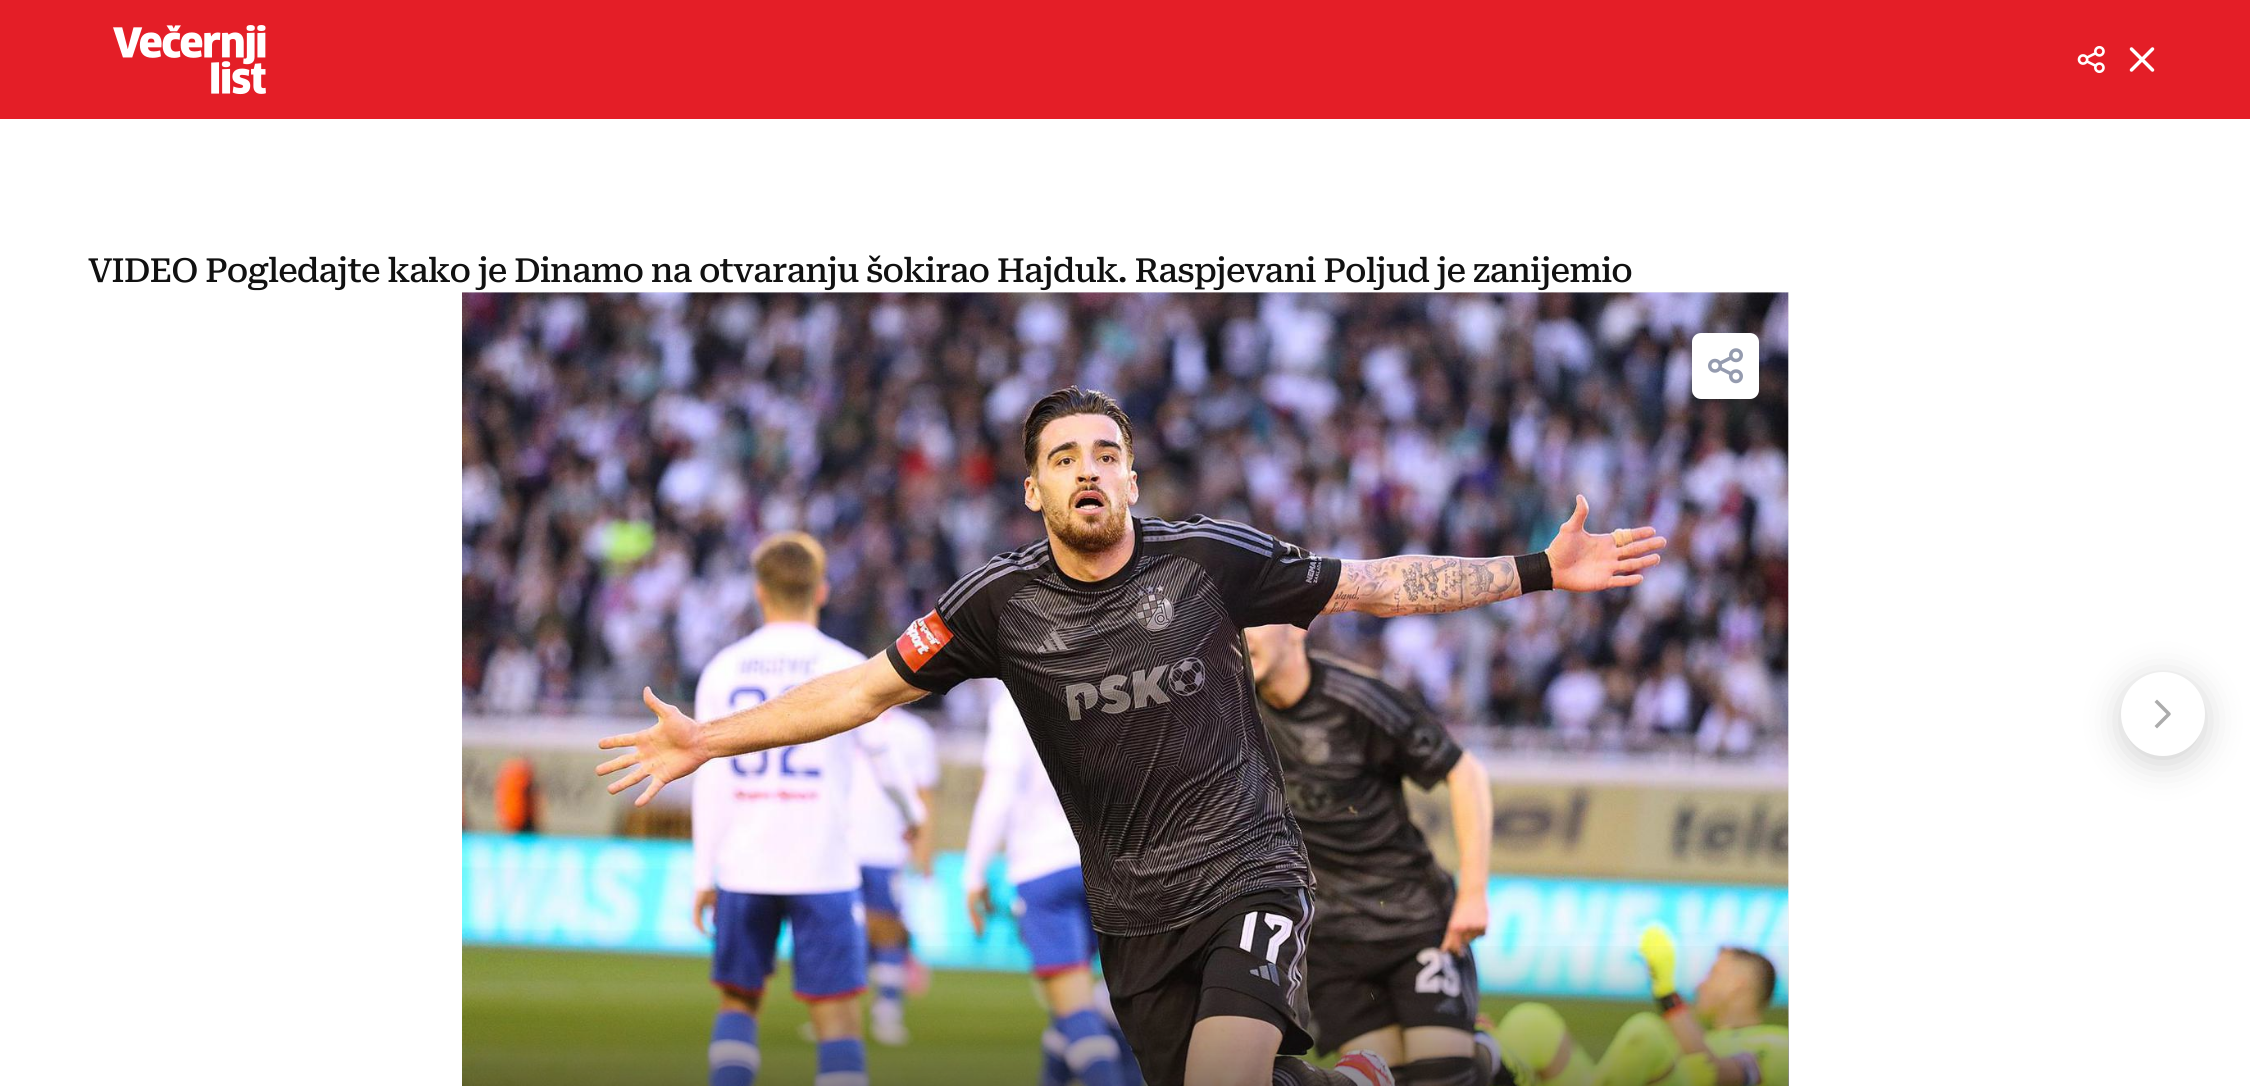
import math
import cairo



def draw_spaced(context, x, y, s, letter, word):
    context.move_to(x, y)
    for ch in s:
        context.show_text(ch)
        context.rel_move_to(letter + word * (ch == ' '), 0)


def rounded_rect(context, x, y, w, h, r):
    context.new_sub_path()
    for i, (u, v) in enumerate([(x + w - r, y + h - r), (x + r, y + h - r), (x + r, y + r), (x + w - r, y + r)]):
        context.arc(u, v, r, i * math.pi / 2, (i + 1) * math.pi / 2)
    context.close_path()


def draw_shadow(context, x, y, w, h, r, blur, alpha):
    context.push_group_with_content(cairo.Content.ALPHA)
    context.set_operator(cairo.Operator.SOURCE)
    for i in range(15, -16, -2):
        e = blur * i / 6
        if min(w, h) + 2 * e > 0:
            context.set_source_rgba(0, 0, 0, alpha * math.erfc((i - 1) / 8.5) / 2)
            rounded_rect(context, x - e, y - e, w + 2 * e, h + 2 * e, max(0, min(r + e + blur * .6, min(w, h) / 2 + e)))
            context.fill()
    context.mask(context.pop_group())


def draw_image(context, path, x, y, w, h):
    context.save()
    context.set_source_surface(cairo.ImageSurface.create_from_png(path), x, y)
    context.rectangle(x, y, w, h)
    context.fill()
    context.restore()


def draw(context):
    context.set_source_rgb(1, 1, 1)
    context.paint()
    context.set_source_rgb(228 / 255, 30 / 255, 39 / 255)
    context.rectangle(0, 0, 2250, 119)
    context.fill()
    draw_image(context, "images/1.png", 113, 25, 153, 70)
    draw_image(context, "images/2.png", 2077, 45, 28, 29)
    context.new_path()
    context.move_to(2131.5, 70)
    context.line_to(2152.5, 49)
    context.move_to(2131.5, 49)
    context.line_to(2152.5, 70)
    context.set_source_rgb(1, 1, 1)
    context.set_line_width(3.5)
    context.set_line_cap(cairo.LineCap.ROUND)
    context.set_line_join(cairo.LineJoin.ROUND)
    context.stroke()
    context.set_source_rgb(238 / 255, 238 / 255, 238 / 255)
    context.rectangle(462, 292, 1327, 794)
    context.fill()
    draw_image(context, "images/3.png", 462, 292, 1327, 794)
    draw_image(context, "images/4.png", 1692, 333, 67, 66)
    gradient = cairo.LinearGradient(1125, 940, 1125, 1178)
    gradient.add_color_stop_rgba(0, 17 / 255, 17 / 255, 17 / 255, 0)
    gradient.add_color_stop_rgba(1, 17 / 255, 17 / 255, 17 / 255, 0.8)
    context.set_source(gradient)
    context.rectangle(462, 946, 1327, 140)
    context.fill()
    context.set_source_rgb(17 / 255, 17 / 255, 17 / 255)
    draw_shadow(context, 2121, 679, 84, 84, 42, 17.5, 0.2)
    context.set_source_rgb(1, 1, 1)
    context.arc(2163, 714, 42, 0, 2 * math.pi)
    context.fill()
    context.new_path()
    context.move_to(2157, 702)
    context.line_to(2169, 714)
    context.line_to(2157, 726)
    context.set_source_rgb(172 / 255, 172 / 255, 172 / 255)
    context.set_line_cap(cairo.LineCap.SQUARE)
    context.stroke()
    context.select_font_face("Roboto Serif Medium")
    context.set_font_size(33.25)
    context.set_source_rgb(17 / 255, 17 / 255, 17 / 255)
    draw_spaced(context, 88, 282, "VIDEO Pogledajte kako je Dinamo na otvaranju šokirao Hajduk. Raspjevani Poljud je zanijemio", -1, 0)


surface = cairo.ImageSurface(cairo.Format.RGB24, 2250, 1086)
context = cairo.Context(surface)
options = cairo.FontOptions()
options.set_hint_metrics(cairo.HintMetrics.OFF)
options.set_hint_style(cairo.HintStyle.NONE)
context.set_font_options(options)
context.set_miter_limit(4)
draw(context)
surface.write_to_png("out.png")
